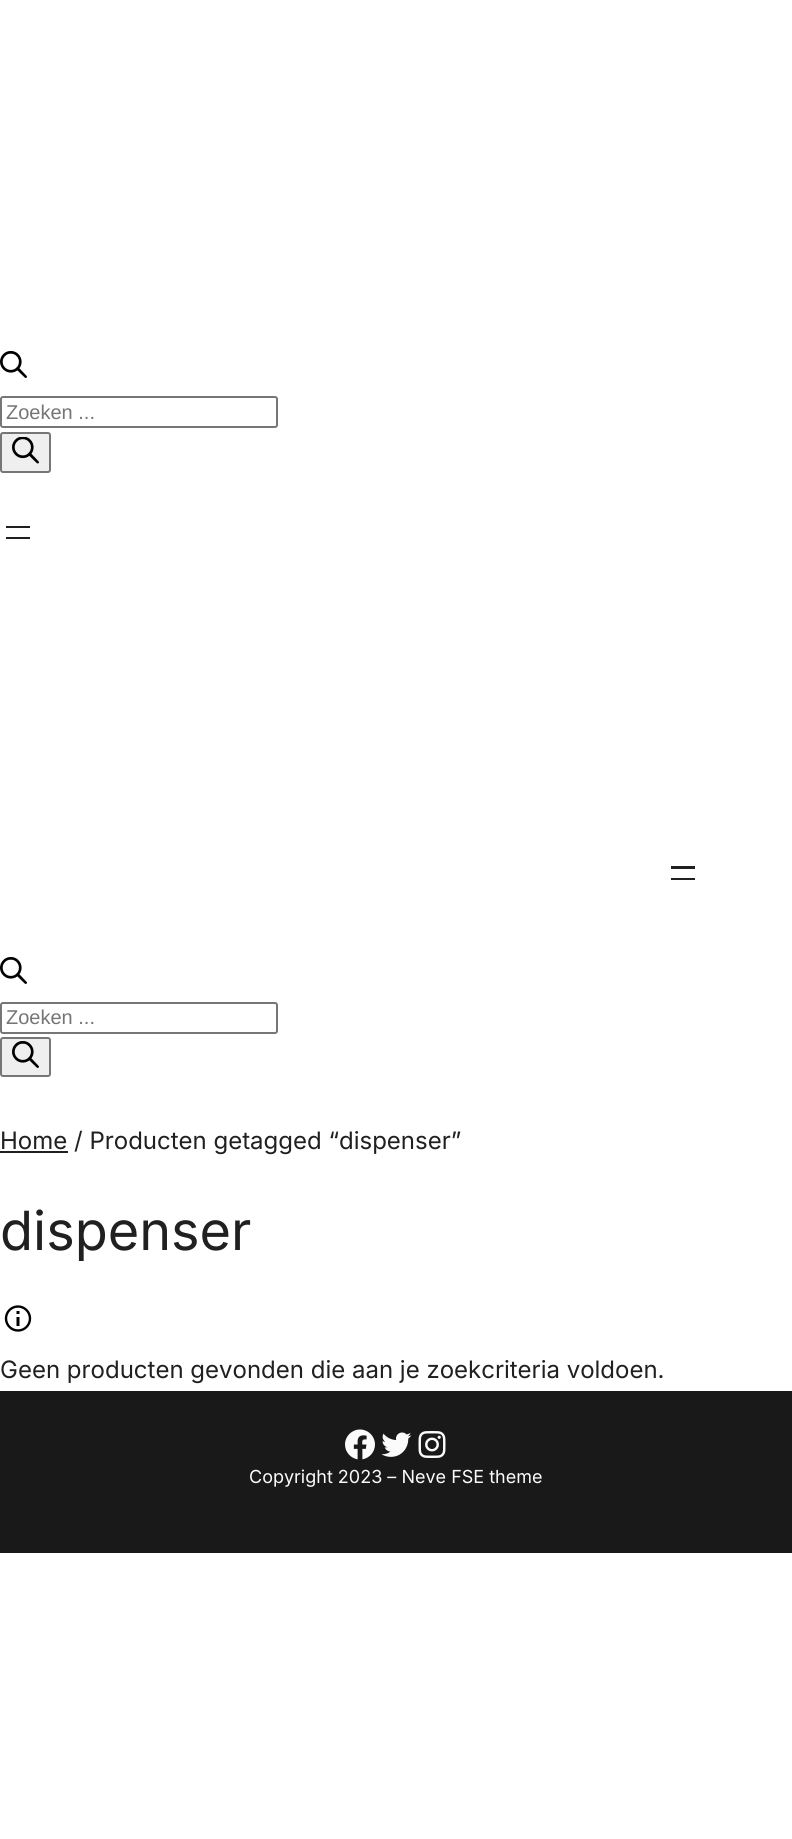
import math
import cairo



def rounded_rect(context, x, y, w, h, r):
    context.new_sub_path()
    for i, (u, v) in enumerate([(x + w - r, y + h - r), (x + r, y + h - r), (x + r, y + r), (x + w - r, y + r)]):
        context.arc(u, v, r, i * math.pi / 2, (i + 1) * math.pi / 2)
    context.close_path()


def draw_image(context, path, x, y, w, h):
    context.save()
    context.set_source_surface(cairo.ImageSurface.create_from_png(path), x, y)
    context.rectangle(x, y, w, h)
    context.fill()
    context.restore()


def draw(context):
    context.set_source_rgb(1, 1, 1)
    context.paint()
    draw_image(context, "images/1.png", 0, 351, 27, 27)
    rounded_rect(context, 1, 397, 276, 30, 2)
    context.set_source_rgb(118 / 255, 118 / 255, 118 / 255)
    context.stroke()
    context.set_source_rgb(239 / 255, 239 / 255, 239 / 255)
    rounded_rect(context, 1, 433, 49, 39, 2)
    context.fill_preserve()
    context.set_source_rgb(118 / 255, 118 / 255, 118 / 255)
    context.stroke()
    draw_image(context, "images/2.png", 12, 437, 27, 27)
    context.set_source_rgb(32 / 255, 32 / 255, 32 / 255)
    context.rectangle(6, 526, 24, 2)
    context.fill()
    context.rectangle(6, 537, 24, 2)
    context.fill()
    context.rectangle(671, 866, 24, 3)
    context.fill()
    context.rectangle(671, 878, 24, 2)
    context.fill()
    draw_image(context, "images/1.png", 0, 957, 27, 27)
    rounded_rect(context, 1, 1003, 276, 30, 2)
    context.set_source_rgb(118 / 255, 118 / 255, 118 / 255)
    context.stroke()
    context.set_source_rgb(239 / 255, 239 / 255, 239 / 255)
    rounded_rect(context, 1, 1038, 49, 38, 2)
    context.fill_preserve()
    context.set_source_rgb(118 / 255, 118 / 255, 118 / 255)
    context.stroke()
    draw_image(context, "images/3.png", 12, 1041, 27, 27)
    context.set_source_rgb(32 / 255, 32 / 255, 32 / 255)
    context.rectangle(0, 1151, 68, 2)
    context.fill()
    draw_image(context, "images/4.png", 4, 1305, 28, 27)
    context.set_source_rgb(26 / 255, 25 / 255, 25 / 255)
    context.rectangle(0, 1391, 792, 162)
    context.fill()
    draw_image(context, "images/5.png", 345, 1429, 30, 31)
    draw_image(context, "images/6.png", 381, 1432, 31, 25)
    draw_image(context, "images/7.png", 418, 1431, 28, 27)
    context.select_font_face("Liberation Sans")
    context.set_font_size(20)
    context.set_source_rgb(117 / 255, 117 / 255, 117 / 255)
    context.move_to(6, 419)
    context.show_text("Zoeken ...")
    context.move_to(6, 1024)
    context.show_text("Zoeken ...")
    context.select_font_face("Inter")
    context.set_font_size(24)
    context.set_source_rgb(32 / 255, 32 / 255, 32 / 255)
    context.move_to(0, 1149)
    context.show_text("Home / Producten getagged “dispenser”")
    context.set_font_size(54)
    context.move_to(0, 1250)
    context.show_text("dispenser")
    context.set_font_size(24)
    context.move_to(0, 1378)
    context.show_text("Geen producten gevonden die aan je zoekcriteria voldoen.")
    context.set_font_size(18)
    context.set_source_rgb(251 / 255, 251 / 255, 251 / 255)
    context.move_to(249, 1483)
    context.show_text("Copyright 2023 – Neve FSE theme")


surface = cairo.ImageSurface(cairo.Format.RGB24, 792, 1839)
context = cairo.Context(surface)
options = cairo.FontOptions()
options.set_hint_metrics(cairo.HintMetrics.OFF)
options.set_hint_style(cairo.HintStyle.NONE)
context.set_font_options(options)
context.set_miter_limit(4)
draw(context)
surface.write_to_png("out.png")
